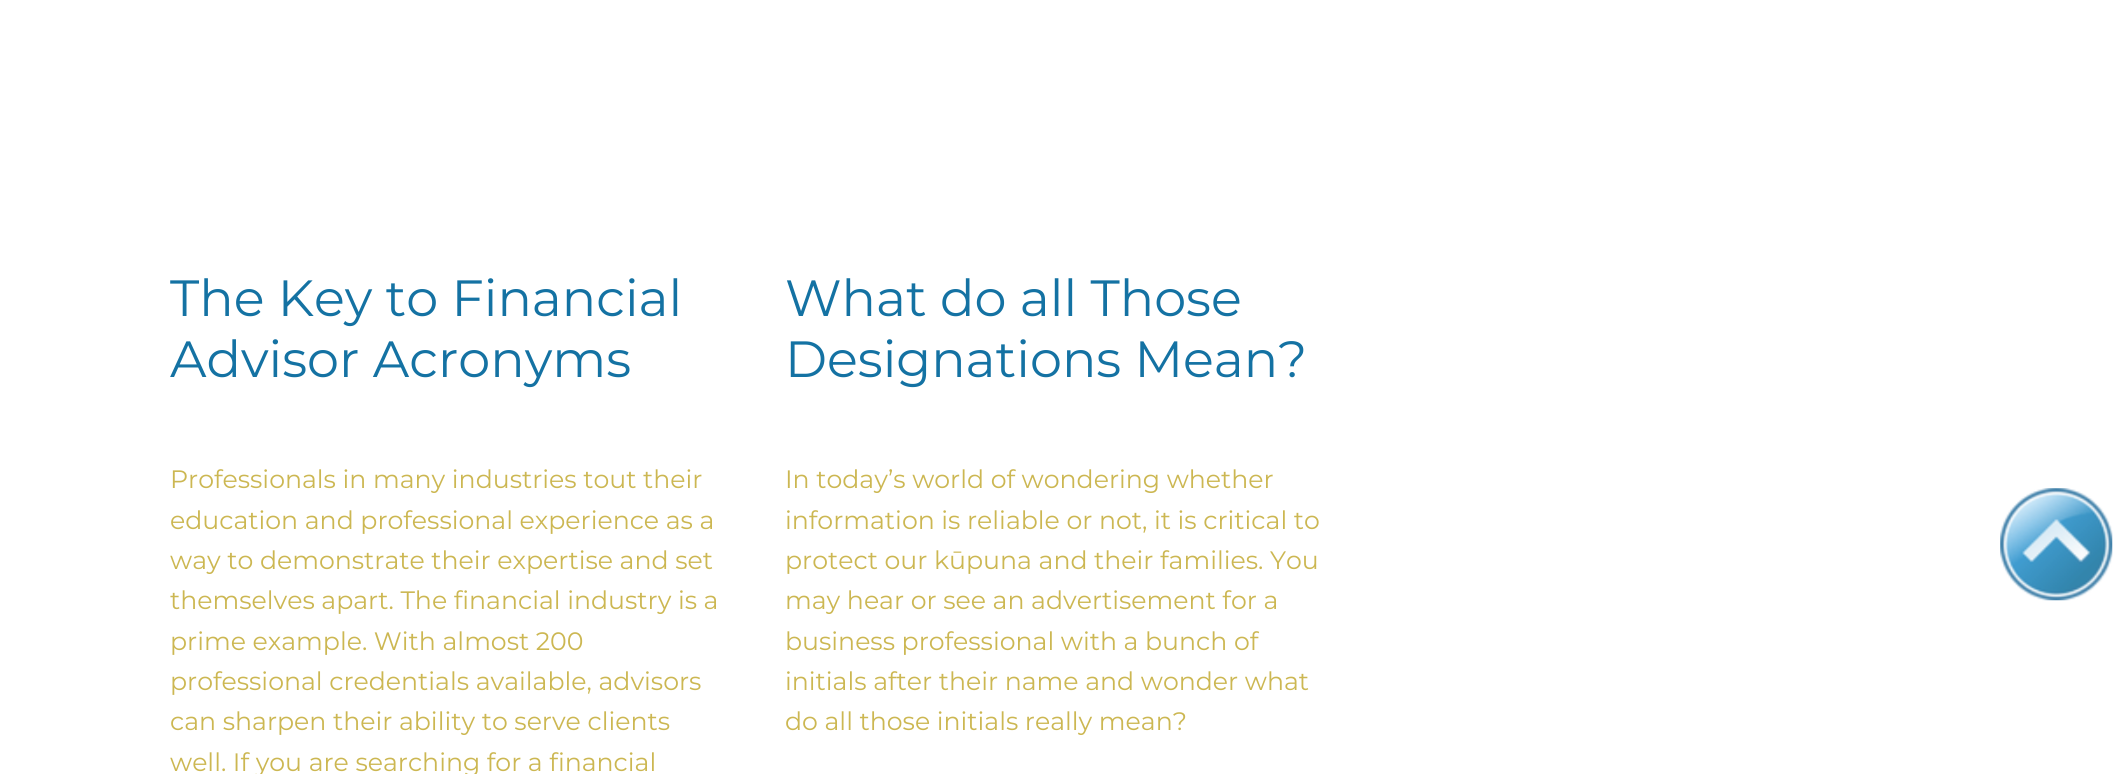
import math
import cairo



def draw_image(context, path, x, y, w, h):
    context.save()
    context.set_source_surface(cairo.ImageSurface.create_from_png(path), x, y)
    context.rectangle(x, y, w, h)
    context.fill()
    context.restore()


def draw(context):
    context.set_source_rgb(1, 1, 1)
    context.paint()
    draw_image(context, "images/1.png", 2000, 488, 113, 113)
    context.select_font_face("Montserrat")
    context.set_font_size(50.9)
    context.set_source_rgb(20 / 255, 114 / 255, 163 / 255)
    context.move_to(170, 316)
    context.show_text("The Key to Financial")
    context.move_to(170, 377)
    context.show_text("Advisor Acronyms")
    context.set_font_size(25.2)
    context.set_source_rgb(204 / 255, 183 / 255, 82 / 255)
    context.move_to(170, 488)
    context.show_text("Professionals in many industries tout their")
    context.move_to(170, 529)
    context.show_text("education and professional experience as a")
    context.move_to(170, 569)
    context.show_text("way to demonstrate their expertise and set")
    context.move_to(170, 609)
    context.show_text("themselves apart. The financial industry is a")
    context.move_to(170, 650)
    context.show_text("prime example. With almost 200")
    context.move_to(170, 690)
    context.show_text("professional credentials available, advisors")
    context.move_to(170, 730)
    context.show_text("can sharpen their ability to serve clients")
    context.move_to(170, 771)
    context.show_text("well. If you are searching for a financial")
    context.set_font_size(50.9)
    context.set_source_rgb(20 / 255, 114 / 255, 163 / 255)
    context.move_to(785, 316)
    context.show_text("What do all Those")
    context.move_to(785, 377)
    context.show_text("Designations Mean?")
    context.set_font_size(25.2)
    context.set_source_rgb(204 / 255, 183 / 255, 82 / 255)
    context.move_to(785, 488)
    context.show_text("In today’s world of wondering whether")
    context.move_to(785, 529)
    context.show_text("information is reliable or not, it is critical to")
    context.move_to(785, 569)
    context.show_text("protect our kūpuna and their families. You")
    context.move_to(785, 609)
    context.show_text("may hear or see an advertisement for a")
    context.move_to(785, 650)
    context.show_text("business professional with a bunch of")
    context.move_to(785, 690)
    context.show_text("initials after their name and wonder what")
    context.move_to(785, 730)
    context.show_text("do all those initials really mean?")


surface = cairo.ImageSurface(cairo.Format.RGB24, 2121, 774)
context = cairo.Context(surface)
options = cairo.FontOptions()
options.set_hint_metrics(cairo.HintMetrics.OFF)
options.set_hint_style(cairo.HintStyle.NONE)
context.set_font_options(options)
context.set_miter_limit(4)
draw(context)
surface.write_to_png("out.png")
